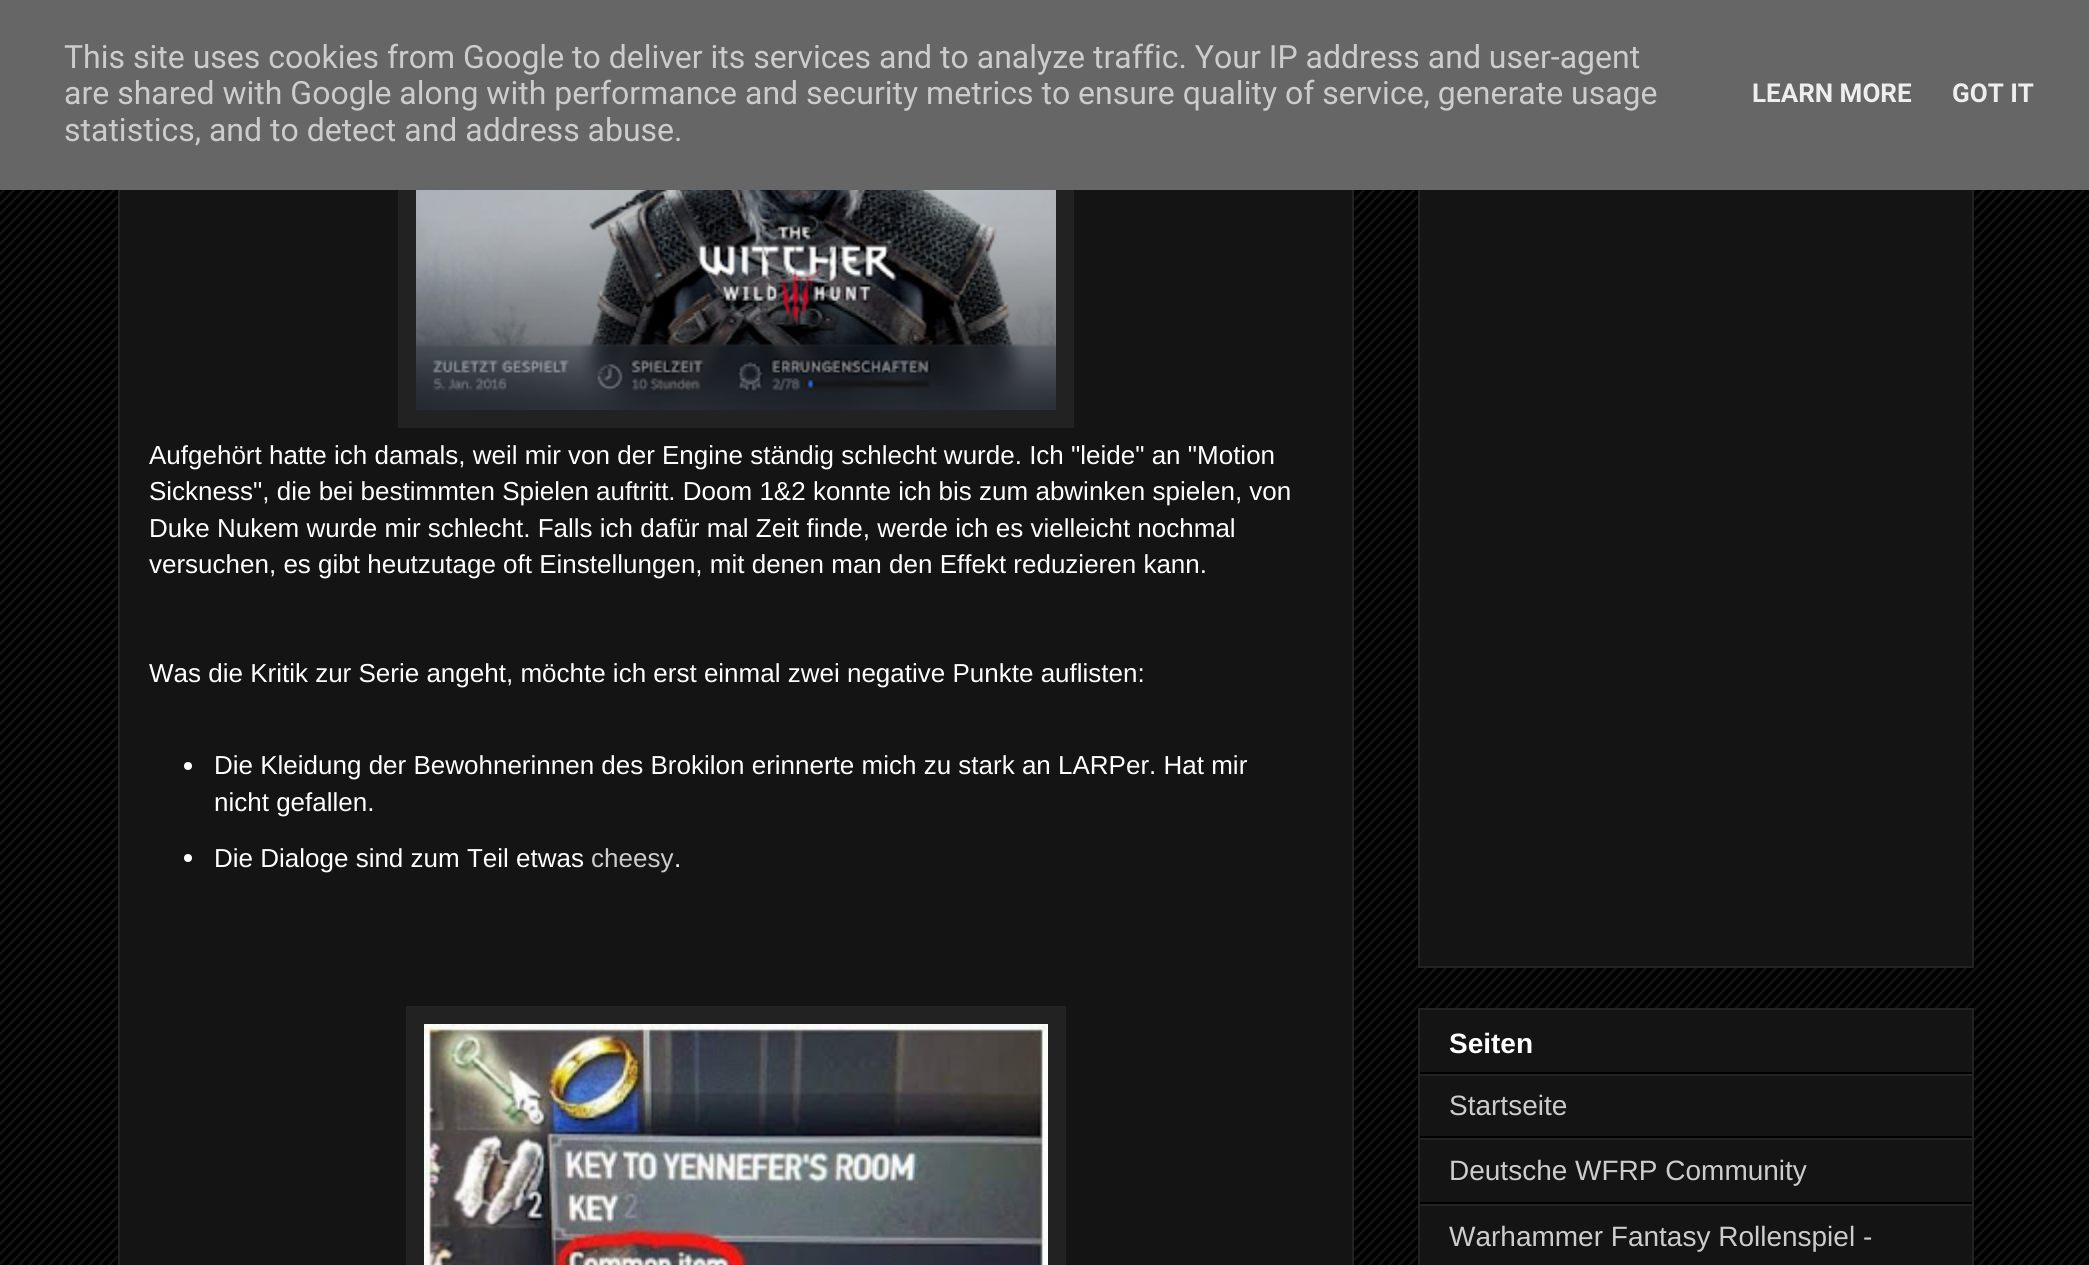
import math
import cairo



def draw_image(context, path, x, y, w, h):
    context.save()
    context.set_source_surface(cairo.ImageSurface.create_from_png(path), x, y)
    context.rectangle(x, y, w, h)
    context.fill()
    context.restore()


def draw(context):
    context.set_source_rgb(0, 0, 0)
    context.paint()
    draw_image(context, "images/1.png", 0, 190, 2089, 1075)
    context.set_source_rgb(20 / 255, 20 / 255, 20 / 255)
    context.rectangle(120, 190, 1232, 1075)
    context.fill()
    context.rectangle(119, -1, 1234, 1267)
    context.set_source_rgb(34 / 255, 34 / 255, 34 / 255)
    context.stroke()
    context.set_source_rgb(20 / 255, 20 / 255, 20 / 255)
    context.rectangle(1420, 190, 552, 776)
    context.fill()
    context.rectangle(1419, -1, 554, 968)
    context.set_source_rgb(34 / 255, 34 / 255, 34 / 255)
    context.stroke()
    context.set_source_rgb(102 / 255, 102 / 255, 102 / 255)
    context.rectangle(0, 0, 2089, 190)
    context.fill()
    context.set_source_rgb(34 / 255, 34 / 255, 34 / 255)
    context.rectangle(398, 190, 676, 238)
    context.fill()
    draw_image(context, "images/2.png", 416, 190, 640, 220)
    context.set_source_rgb(1, 1, 1)
    context.arc(188, 766, 4, 0, 2 * math.pi)
    context.fill()
    context.arc(188, 858, 4, 0, 2 * math.pi)
    context.fill()
    context.set_source_rgb(34 / 255, 34 / 255, 34 / 255)
    context.rectangle(406, 1006, 660, 259)
    context.fill()
    draw_image(context, "images/3.png", 424, 1024, 624, 241)
    context.set_source_rgb(20 / 255, 20 / 255, 20 / 255)
    context.rectangle(1419, 1009, 554, 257)
    context.fill_preserve()
    context.set_source_rgb(34 / 255, 34 / 255, 34 / 255)
    context.stroke()
    context.set_source_rgb(0, 0, 0)
    context.rectangle(1420, 1072, 552, 2)
    context.fill()
    context.set_source_rgb(34 / 255, 34 / 255, 34 / 255)
    context.rectangle(1420, 1074, 552, 2)
    context.fill()
    context.set_source_rgb(0, 0, 0)
    context.rectangle(1420, 1136, 552, 2)
    context.fill()
    context.set_source_rgb(34 / 255, 34 / 255, 34 / 255)
    context.rectangle(1420, 1138, 552, 2)
    context.fill()
    context.set_source_rgb(0, 0, 0)
    context.rectangle(1420, 1202, 552, 2)
    context.fill()
    context.set_source_rgb(34 / 255, 34 / 255, 34 / 255)
    context.rectangle(1420, 1204, 552, 2)
    context.fill()
    context.select_font_face("Roboto")
    context.set_font_size(32)
    context.set_source_rgb(204 / 255, 204 / 255, 204 / 255)
    context.move_to(64, 68)
    context.show_text("This site uses cookies from Google to deliver its services and to analyze traffic. Your IP address and user-agent")
    context.move_to(64, 104)
    context.show_text("are shared with Google along with performance and security metrics to ensure quality of service, generate usage")
    context.move_to(64, 141)
    context.show_text("statistics, and to detect and address abuse.")
    context.select_font_face("Roboto", cairo.FontSlant.NORMAL, cairo.FontWeight.BOLD)
    context.set_font_size(26)
    context.set_source_rgb(238 / 255, 238 / 255, 238 / 255)
    context.move_to(1752, 102)
    context.show_text("LEARN MORE")
    context.move_to(1952, 102)
    context.show_text("GOT IT")
    context.select_font_face("Liberation Sans")
    context.set_source_rgb(1, 1, 1)
    context.move_to(149, 464)
    context.show_text("Aufgehört hatte ich damals, weil mir von der Engine ständig schlecht wurde. Ich \"leide\" an \"Motion")
    context.move_to(149, 500)
    context.show_text("Sickness\", die bei bestimmten Spielen auftritt. Doom 1&2 konnte ich bis zum abwinken spielen, von")
    context.move_to(149, 537)
    context.show_text("Duke Nukem wurde mir schlecht. Falls ich dafür mal Zeit finde, werde ich es vielleicht nochmal")
    context.move_to(149, 573)
    context.show_text("versuchen, es gibt heutzutage oft Einstellungen, mit denen man den Effekt reduzieren kann.")
    context.move_to(149, 682)
    context.show_text("Was die Kritik zur Serie angeht, möchte ich erst einmal zwei negative Punkte auflisten:")
    context.move_to(214, 774)
    context.show_text("Die Kleidung der Bewohnerinnen des Brokilon erinnerte mich zu stark an LARPer. Hat mir")
    context.move_to(214, 811)
    context.show_text("nicht gefallen.")
    context.move_to(214, 867)
    context.show_text("Die Dialoge sind zum Teil etwas")
    context.set_source_rgb(204 / 255, 204 / 255, 204 / 255)
    context.move_to(591, 867)
    context.show_text("cheesy")
    context.set_source_rgb(1, 1, 1)
    context.move_to(674, 867)
    context.show_text(".")
    context.select_font_face("Liberation Sans", cairo.FontSlant.NORMAL, cairo.FontWeight.BOLD)
    context.set_font_size(28)
    context.move_to(1449, 1053)
    context.show_text("Seiten")
    context.select_font_face("Liberation Sans")
    context.set_source_rgb(204 / 255, 204 / 255, 204 / 255)
    context.move_to(1449, 1115)
    context.show_text("Startseite")
    context.move_to(1449, 1180)
    context.show_text("Deutsche WFRP Community")
    context.move_to(1449, 1246)
    context.show_text("Warhammer Fantasy Rollenspiel -")


surface = cairo.ImageSurface(cairo.Format.RGB24, 2089, 1265)
context = cairo.Context(surface)
options = cairo.FontOptions()
options.set_hint_metrics(cairo.HintMetrics.OFF)
options.set_hint_style(cairo.HintStyle.NONE)
context.set_font_options(options)
context.set_miter_limit(4)
draw(context)
surface.write_to_png("out.png")
